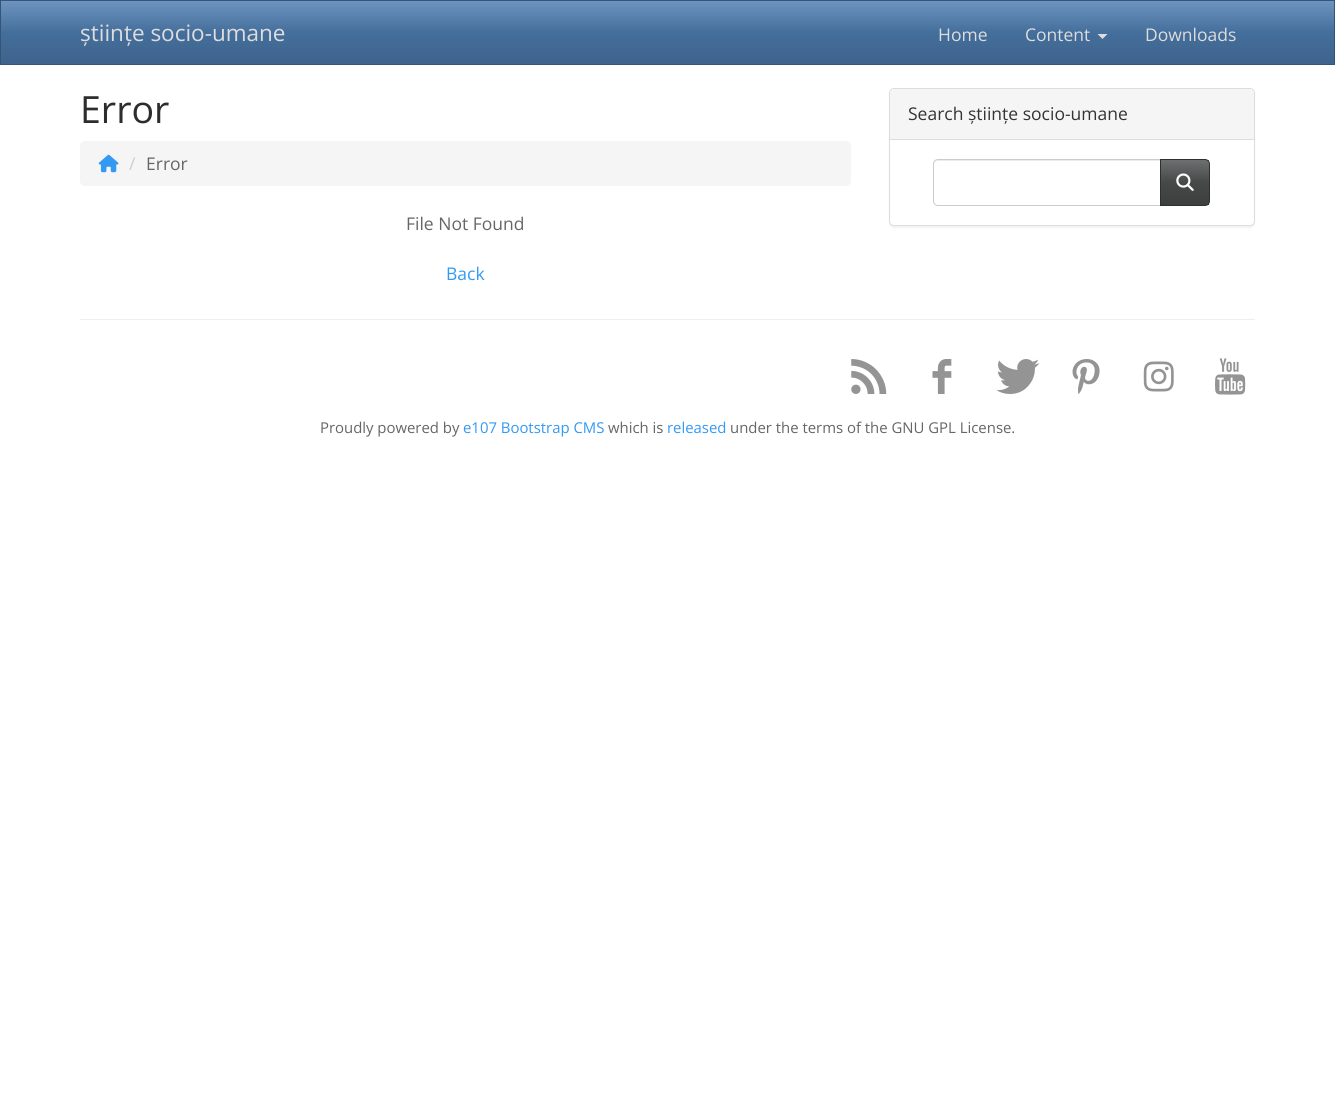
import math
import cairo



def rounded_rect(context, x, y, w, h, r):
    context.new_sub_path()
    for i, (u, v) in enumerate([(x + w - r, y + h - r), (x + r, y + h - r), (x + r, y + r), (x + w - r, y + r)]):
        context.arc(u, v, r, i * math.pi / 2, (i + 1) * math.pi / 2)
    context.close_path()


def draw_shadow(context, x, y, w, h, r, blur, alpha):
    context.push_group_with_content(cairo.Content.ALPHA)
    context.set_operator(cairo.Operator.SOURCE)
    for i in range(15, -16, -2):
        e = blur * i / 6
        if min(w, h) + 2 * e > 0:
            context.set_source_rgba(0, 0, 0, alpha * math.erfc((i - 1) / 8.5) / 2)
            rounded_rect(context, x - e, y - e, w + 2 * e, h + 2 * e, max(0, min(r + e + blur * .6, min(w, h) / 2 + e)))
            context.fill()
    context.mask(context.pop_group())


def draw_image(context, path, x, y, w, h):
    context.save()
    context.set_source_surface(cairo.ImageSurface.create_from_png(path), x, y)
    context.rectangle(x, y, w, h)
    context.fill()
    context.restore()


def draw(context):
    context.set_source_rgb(1, 1, 1)
    context.paint()
    gradient = cairo.LinearGradient(668, 1.2, 668, 64)
    gradient.add_color_stop_rgba(0, 109 / 255, 148 / 255, 191 / 255, 1)
    gradient.add_color_stop_rgba(0.5, 68 / 255, 110 / 255, 155 / 255, 1)
    gradient.add_color_stop_rgba(1, 62 / 255, 100 / 255, 141 / 255, 1)
    context.set_source(gradient)
    context.rectangle(1, 1, 1333, 63)
    context.fill()
    context.rectangle(0.5, 0.5, 1334, 64)
    context.set_source_rgb(52 / 255, 85 / 255, 120 / 255)
    context.set_line_width(1)
    context.stroke()
    context.set_source_rgb(221 / 255, 221 / 255, 221 / 255)
    context.new_path()
    context.move_to(1097.5, 34)
    context.line_to(1107.5, 34)
    context.line_to(1102.5, 39)
    context.close_path()
    context.fill()
    context.set_source_rgb(245 / 255, 245 / 255, 245 / 255)
    rounded_rect(context, 80, 141, 771, 45, 5)
    context.fill()
    draw_image(context, "images/1.png", 98, 154, 21, 19)
    context.set_source_rgb(0, 0, 0)
    draw_shadow(context, 889, 89, 366, 139, 5, 0.5, 0.05)
    context.set_source_rgb(1, 1, 1)
    rounded_rect(context, 889.5, 88.5, 365, 137, 4.5)
    context.fill_preserve()
    context.set_source_rgb(221 / 255, 221 / 255, 221 / 255)
    context.stroke()
    context.set_source_rgb(245 / 255, 245 / 255, 245 / 255)
    context.new_path()
    context.move_to(894, 89)
    context.line_to(1250, 89)
    context.curve_to(1252, 89, 1254, 91, 1254, 93)
    context.line_to(1254, 140)
    context.line_to(890, 140)
    context.line_to(890, 93)
    context.curve_to(890, 91, 892, 89, 894, 89)
    context.close_path()
    context.fill()
    context.set_source_rgb(221 / 255, 221 / 255, 221 / 255)
    context.rectangle(890, 139, 364, 1)
    context.fill()
    context.set_source_rgb(236 / 255, 236 / 255, 236 / 255)
    context.new_path()
    context.move_to(938, 161)
    context.line_to(1160, 161)
    context.line_to(1160, 160)
    context.line_to(938, 160)
    context.curve_to(935, 160, 934, 162, 934, 165)
    context.curve_to(934, 163, 935, 161, 938, 161)
    context.close_path()
    context.fill()
    context.new_path()
    context.move_to(938, 159.5)
    context.line_to(1160.5, 159.5)
    context.line_to(1160.5, 205.5)
    context.line_to(938, 205.5)
    context.curve_to(935.5, 205.5, 933.5, 203.5, 933.5, 201)
    context.line_to(933.5, 164)
    context.curve_to(933.5, 161.5, 935.5, 159.5, 938, 159.5)
    context.close_path()
    context.set_source_rgb(204 / 255, 204 / 255, 204 / 255)
    context.stroke()
    gradient = cairo.LinearGradient(1185, 160, 1185, 205)
    gradient.add_color_stop_rgba(0, 109 / 255, 112 / 255, 112 / 255, 1)
    gradient.add_color_stop_rgba(0.5, 71 / 255, 73 / 255, 73 / 255, 1)
    gradient.add_color_stop_rgba(1, 61 / 255, 63 / 255, 63 / 255, 1)
    context.set_source(gradient)
    context.rectangle(1161, 160, 48, 45)
    context.fill()
    context.new_path()
    context.move_to(1160.5, 159.5)
    context.line_to(1205, 159.5)
    context.curve_to(1207.5, 159.5, 1209.5, 161.5, 1209.5, 164)
    context.line_to(1209.5, 201)
    context.curve_to(1209.5, 203.5, 1207.5, 205.5, 1205, 205.5)
    context.line_to(1160.5, 205.5)
    context.close_path()
    context.set_source_rgb(46 / 255, 47 / 255, 47 / 255)
    context.stroke()
    draw_image(context, "images/2.png", 1176, 173, 18, 18)
    context.set_source_rgb(238 / 255, 238 / 255, 238 / 255)
    context.rectangle(80, 319, 1175, 1)
    context.fill()
    draw_image(context, "images/3.png", 851, 359, 36, 35)
    draw_image(context, "images/4.png", 932, 359, 20, 35)
    draw_image(context, "images/5.png", 996, 359, 44, 35)
    draw_image(context, "images/6.png", 1072, 359, 28, 35)
    draw_image(context, "images/7.png", 1143, 361, 31, 31)
    draw_image(context, "images/8.png", 1215, 358, 31, 37)
    context.select_font_face("Open Sans")
    context.set_font_size(22.5)
    context.set_source_rgb(221 / 255, 221 / 255, 221 / 255)
    context.move_to(80, 41)
    context.show_text("științe socio-umane")
    context.set_font_size(17.5)
    context.move_to(938, 41)
    context.show_text("Home")
    context.move_to(1025, 41)
    context.show_text("Content")
    context.move_to(1145, 41)
    context.show_text("Downloads")
    context.set_font_size(37.5)
    context.set_source_rgb(45 / 255, 45 / 255, 45 / 255)
    context.move_to(80, 123)
    context.show_text("Error")
    context.set_font_size(17.5)
    context.set_source_rgb(204 / 255, 204 / 255, 204 / 255)
    context.move_to(129, 170)
    context.show_text("/")
    context.set_source_rgb(102 / 255, 102 / 255, 102 / 255)
    context.move_to(146, 170)
    context.show_text("Error")
    context.move_to(406, 230)
    context.show_text("File Not Found")
    context.set_source_rgb(51 / 255, 153 / 255, 243 / 255)
    context.move_to(446, 280)
    context.show_text("Back")
    context.set_source_rgb(51 / 255, 51 / 255, 51 / 255)
    context.move_to(908, 120)
    context.show_text("Search științe socio-umane")
    context.set_font_size(14.9)
    context.set_source_rgb(102 / 255, 102 / 255, 102 / 255)
    context.move_to(320, 433)
    context.show_text("Proudly powered by")
    context.set_source_rgb(51 / 255, 153 / 255, 243 / 255)
    context.move_to(463, 433)
    context.show_text("e107 Bootstrap CMS")
    context.set_source_rgb(102 / 255, 102 / 255, 102 / 255)
    context.move_to(608, 433)
    context.show_text("which is")
    context.set_source_rgb(51 / 255, 153 / 255, 243 / 255)
    context.move_to(667, 433)
    context.show_text("released")
    context.set_source_rgb(102 / 255, 102 / 255, 102 / 255)
    context.move_to(730, 433)
    context.show_text("under the terms of the GNU GPL License.")


surface = cairo.ImageSurface(cairo.Format.RGB24, 1335, 1102)
context = cairo.Context(surface)
options = cairo.FontOptions()
options.set_hint_metrics(cairo.HintMetrics.OFF)
options.set_hint_style(cairo.HintStyle.NONE)
context.set_font_options(options)
context.set_miter_limit(4)
draw(context)
surface.write_to_png("out.png")
